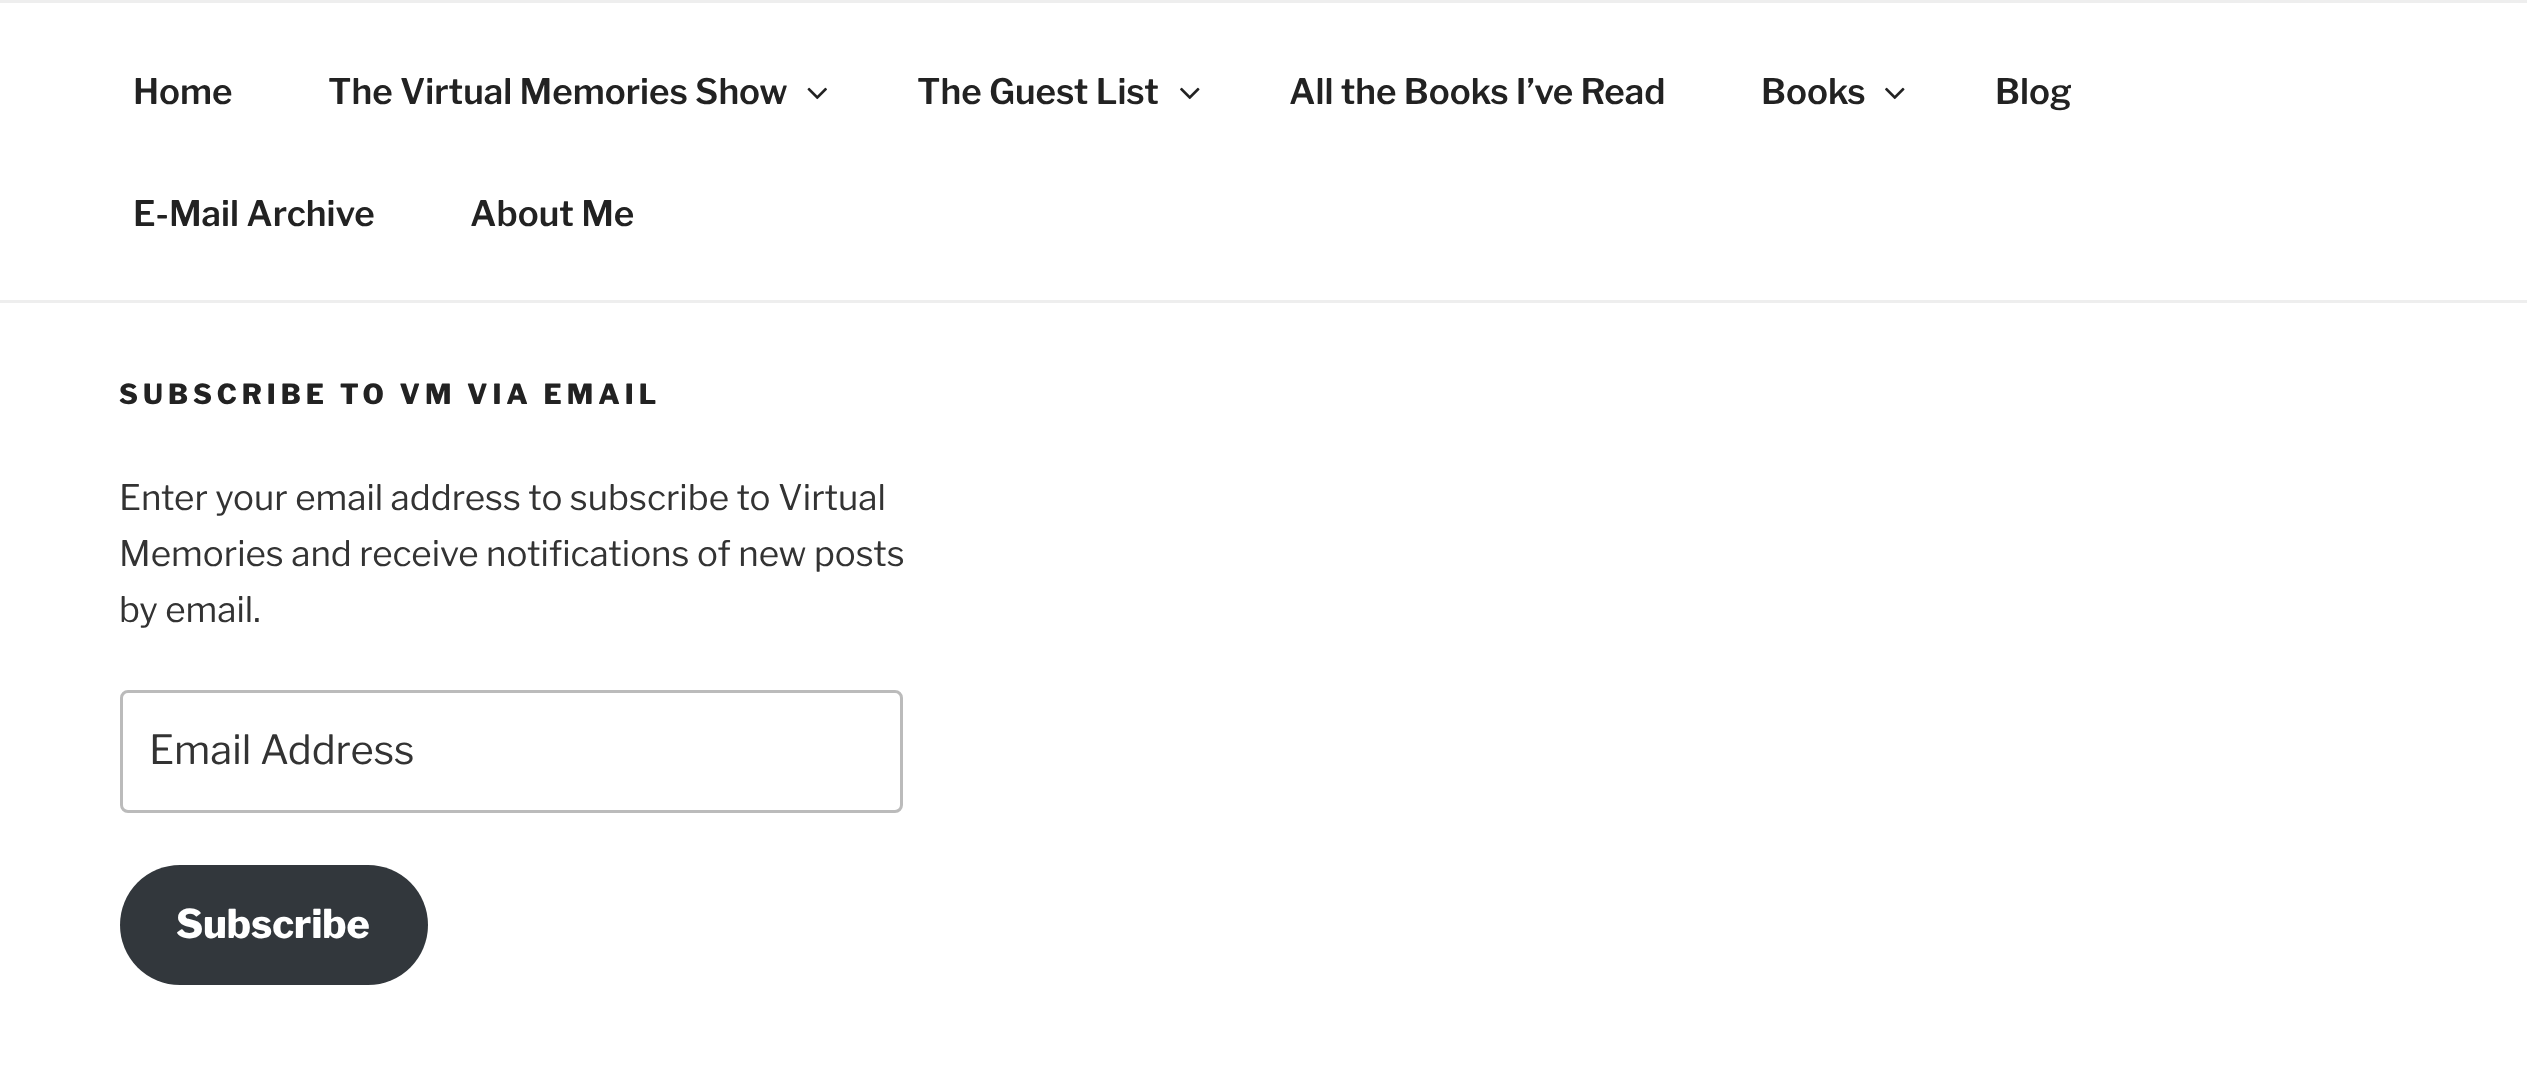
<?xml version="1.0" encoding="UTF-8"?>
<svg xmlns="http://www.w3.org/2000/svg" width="2527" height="1089">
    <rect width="100%" height="100%" fill="#FFFFFF"/>
    <rect x="0" y="0" width="2527" height="3" fill="#EEEEEE"/>
    <rect x="0" y="300" width="2527" height="3" fill="#EEEEEE"/>
    <text x="133" y="104" font-family="'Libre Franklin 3'" font-size="35" font-weight="100" fill="#222222">Home</text>
    <text x="328" y="104" font-family="'Libre Franklin 3'" font-size="35" font-weight="100" fill="#222222">The Virtual Memories Show</text>
    <image x="807" y="87" width="20" height="13" href="img_01.png"/>
    <text x="917" y="104" font-family="'Libre Franklin 3'" font-size="35" font-weight="100" fill="#222222">The Guest List</text>
    <image x="1180" y="87" width="20" height="13" href="img_02.png"/>
    <text x="1289" y="104" font-family="'Libre Franklin 3'" font-size="35" font-weight="100" fill="#222222">All the Books I’ve Read</text>
    <text x="1761" y="104" font-family="'Libre Franklin 3'" font-size="35" font-weight="100" fill="#222222">Books</text>
    <image x="1885" y="87" width="20" height="13" href="img_02.png"/>
    <text x="1995" y="104" font-family="'Libre Franklin 3'" font-size="35" font-weight="100" fill="#222222">Blog</text>
    <text x="133" y="226" font-family="'Libre Franklin 3'" font-size="35" font-weight="100" fill="#222222">E-Mail Archive</text>
    <text x="470" y="226" font-family="'Libre Franklin 3'" font-size="35" font-weight="100" fill="#222222">About Me</text>
    <text x="119" y="404" font-family="Libre Franklin" font-size="27.5" font-weight="100" letter-spacing="5" fill="#222222">SUBSCRIBE TO VM VIA EMAIL</text>
    <text font-family="'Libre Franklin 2'" font-size="35" font-weight="100" fill="#333333">
        <tspan x="119" y="510">Enter your email address to subscribe to Virtual</tspan>
        <tspan x="119" y="566">Memories and receive notifications of new posts</tspan>
        <tspan x="119" y="622">by email.</tspan>
    </text>
    <rect x="121.5" y="691.5" width="780" height="120" rx="6.5" fill="none" stroke="#BBBBBB" stroke-width="3"/>
    <text x="149" y="764" font-family="'Libre Franklin 2'" font-size="40" font-weight="100" fill="#333333">Email Address</text>
    <rect x="120" y="865" width="308" height="120" rx="60" fill="#32373C"/>
    <text x="176" y="938" font-family="Libre Franklin" font-size="39.5" font-weight="100" fill="#FFFFFF">Subscribe</text>
</svg>
